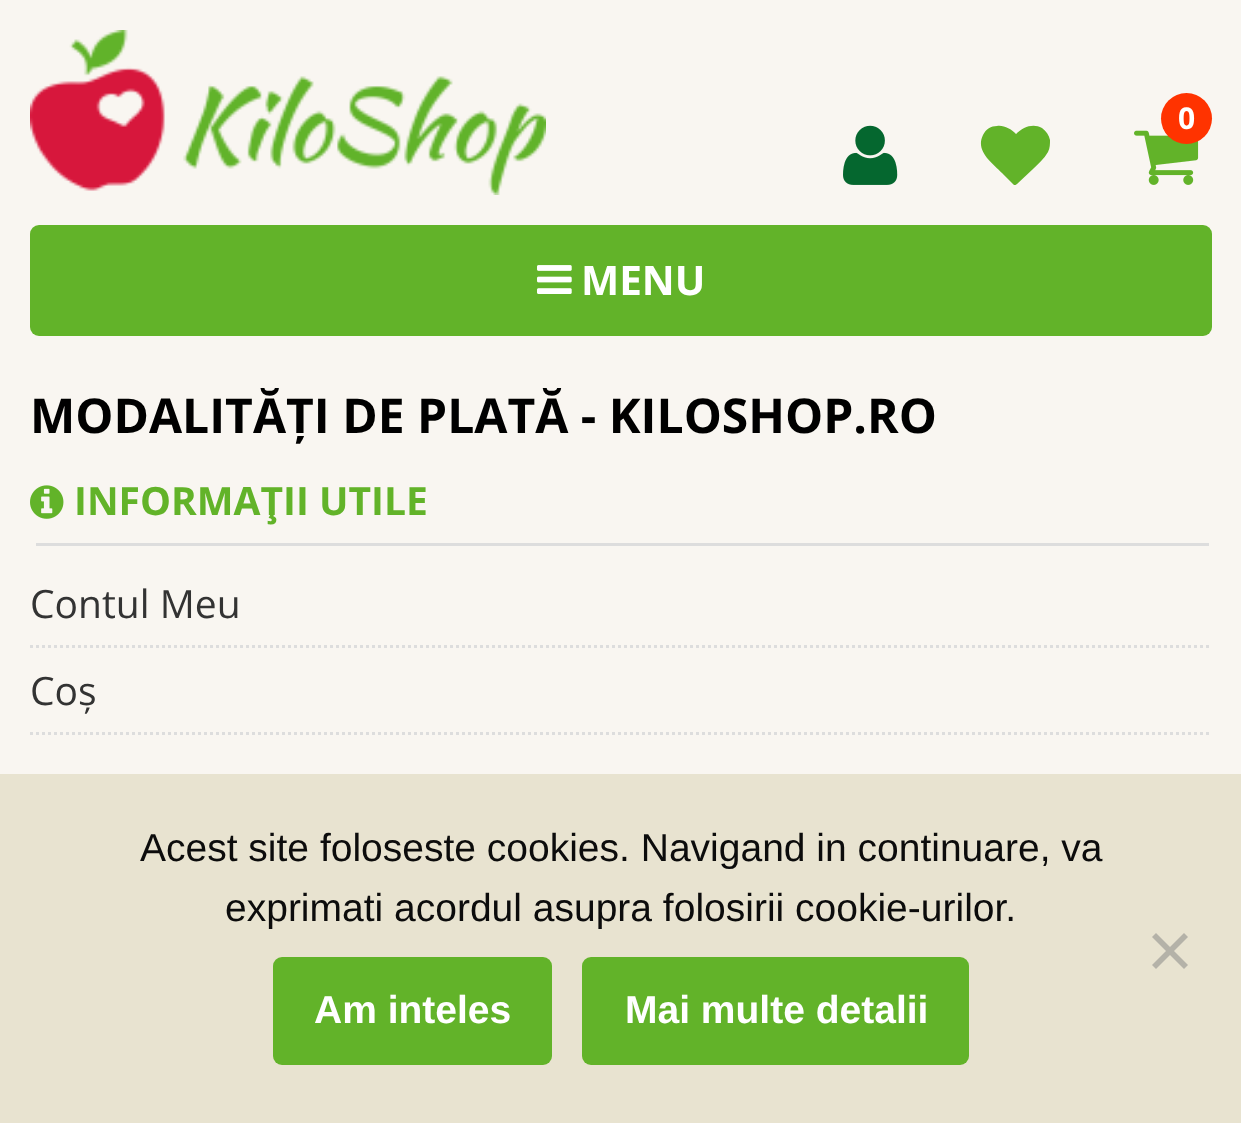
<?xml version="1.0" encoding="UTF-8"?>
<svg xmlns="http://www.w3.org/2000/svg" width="1241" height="1123">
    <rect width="100%" height="100%" fill="#F9F6F1"/>
    <image x="30" y="30" width="516" height="165" href="img_01.png"/>
    <image x="1134" y="130" width="65" height="55" href="img_02.png"/>
    <circle cx="1186.5" cy="118.5" r="25.5" fill="#FF3300"/>
    <text x="1178" y="129" font-family="Open Sans" font-size="30" font-weight="700" fill="#FFFFFF">0</text>
    <image x="843" y="125" width="55" height="60" href="img_03.png"/>
    <path d="M 1017 184 C 1016 185 1015 185 1014 185 L 1002 173 C 992 163 975 151 983 135 C 986 129 991 126 997 126 C 1004 125 1011 129 1016 134 C 1023 127 1033 123 1042 128 C 1046 131 1049 135 1050 140 C 1050 144 1050 148 1048 152 C 1044 159 1038 164 1033 169 Z" fill="#62B329"/>
    <rect x="30" y="225" width="1182" height="111" rx="9" fill="#62B329"/>
    <image x="537" y="265" width="35" height="29" href="img_04.png"/>
    <text x="581" y="295" font-family="Open Sans" font-size="40.5" font-weight="700" fill="#FFFFFF">MENU</text>
    <text x="30" y="433" font-family="Open Sans" font-size="48" font-weight="700" fill="#000000">MODALITĂȚI DE PLATĂ - KILOSHOP.RO</text>
    <rect x="36" y="543" width="1173" height="3" fill="#DDDDDD"/>
    <image x="30" y="485" width="34" height="34" href="img_05.png"/>
    <text x="74" y="515" font-family="Open Sans" font-size="39" font-weight="700" fill="#62B329">INFORMAŢII UTILE</text>
    <path d="M 30 646.5 H 1212" fill="none" stroke="#DDDDDD" stroke-width="3" stroke-dasharray="3 3"/>
    <text x="30" y="618" font-family="Open Sans" font-size="39" fill="#333333">Contul Meu</text>
    <path d="M 30 733.5 H 1212" fill="none" stroke="#DDDDDD" stroke-width="3" stroke-dasharray="3 3"/>
    <text x="30" y="705" font-family="Open Sans" font-size="39" fill="#333333">Coș</text>
    <rect x="0" y="774" width="1241" height="349" fill="#E8E3D0"/>
    <text x="140" y="861" font-family="Liberation Sans" font-size="39" fill="#0C0C0C">Acest site foloseste cookies. Navigand in continuare, va</text>
    <text x="225" y="921" font-family="Liberation Sans" font-size="39" fill="#0C0C0C">exprimati acordul asupra folosirii cookie-urilor.</text>
    <path d="M 1184 933 L 1188 937 L 1156 969 L 1152 965 Z" fill="#B4B2A8"/>
    <path d="M 1152 937 L 1156 933 L 1188 965 L 1184 969 Z" fill="#B4B2A8"/>
    <rect x="273" y="957" width="279" height="108" rx="9" fill="#62B329"/>
    <text x="314" y="1023" font-family="Liberation Sans" font-size="39" font-weight="700" fill="#FFFFFF">Am inteles</text>
    <rect x="582" y="957" width="387" height="108" rx="9" fill="#62B329"/>
    <text x="625" y="1023" font-family="Liberation Sans" font-size="39" font-weight="700" fill="#FFFFFF">Mai multe detalii</text>
</svg>
